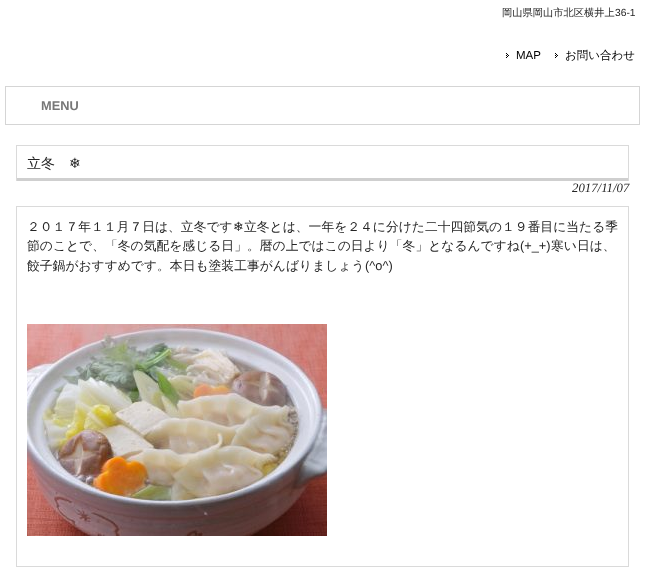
<?xml version="1.0" encoding="UTF-8"?>
<svg xmlns="http://www.w3.org/2000/svg" width="645" height="567">
    <rect width="100%" height="100%" fill="#FFFFFF"/>
    <text x="502" y="16" font-family="WenQuanYi Zen Hei" font-size="10.25" font-weight="500" fill="#252525">岡山県岡山市北区横井上</text>
    <text x="615" y="16" font-family="Liberation Sans" font-size="10.25" fill="#252525">36-1</text>
    <image x="506" y="53" width="3" height="5" href="img_01.png"/>
    <text x="516" y="59" font-family="Liberation Sans" font-size="11.5" fill="#000000">MAP</text>
    <image x="555" y="53" width="3" height="5" href="img_01.png"/>
    <text x="565" y="59" font-family="WenQuanYi Zen Hei" font-size="11.5" font-weight="500" fill="#000000">お問い合わせ</text>
    <rect x="5.5" y="86.5" width="634" height="38" fill="none" stroke="#D5D5D5"/>
    <text x="41" y="110" font-family="Liberation Sans" font-size="12.8" font-weight="700" fill="#777777">MENU</text>
    <rect x="16" y="178" width="613" height="3" fill="#CFCFCF"/>
    <rect x="16" y="145" width="613" height="1" fill="#DADADA"/>
    <rect x="628" y="145" width="1" height="36" fill="#DADADA"/>
    <rect x="16" y="145" width="1" height="36" fill="#DADADA"/>
    <text x="27" y="168" font-family="WenQuanYi Zen Hei" font-size="14" font-weight="500" fill="#252525">立冬</text>
    <text x="69" y="168" font-family="DejaVu Sans" font-size="14" fill="#252525">❄</text>
    <text x="572" y="192" font-family="Liberation Serif" font-size="12.8" font-style="italic" fill="#252525">2017/11/07</text>
    <rect x="16.5" y="206.5" width="612" height="360" fill="none" stroke="#DADADA"/>
    <text x="27" y="231" font-family="WenQuanYi Zen Hei" font-size="12.8" font-weight="500" fill="#252525">２０１７年１１月７日は、立冬です</text>
    <text x="233" y="231" font-family="DejaVu Sans" font-size="12.8" fill="#252525">❄</text>
    <text x="244" y="231" font-family="WenQuanYi Zen Hei" font-size="12.8" font-weight="500" fill="#252525">立冬とは、一年を２４に分けた二十四節気の１９番目に当たる季</text>
    <text x="27" y="250" font-family="WenQuanYi Zen Hei" font-size="12.8" font-weight="500" fill="#252525">節のことで、「冬の気配を感じる日」。暦の上ではこの日より「冬」となるんですね</text>
    <text x="520" y="250" font-family="Liberation Sans" font-size="12.8" fill="#252525">(+_+)</text>
    <text x="551" y="250" font-family="WenQuanYi Zen Hei" font-size="12.8" font-weight="500" fill="#252525">寒い日は、</text>
    <text x="27" y="270" font-family="WenQuanYi Zen Hei" font-size="12.8" font-weight="500" fill="#252525">餃子鍋がおすすめです。本日も塗装工事がんばりましょう</text>
    <text x="365" y="270" font-family="Liberation Sans" font-size="12.8" fill="#252525">(^o^)</text>
    <image x="27" y="324" width="300" height="212" href="img_02.png"/>
</svg>
